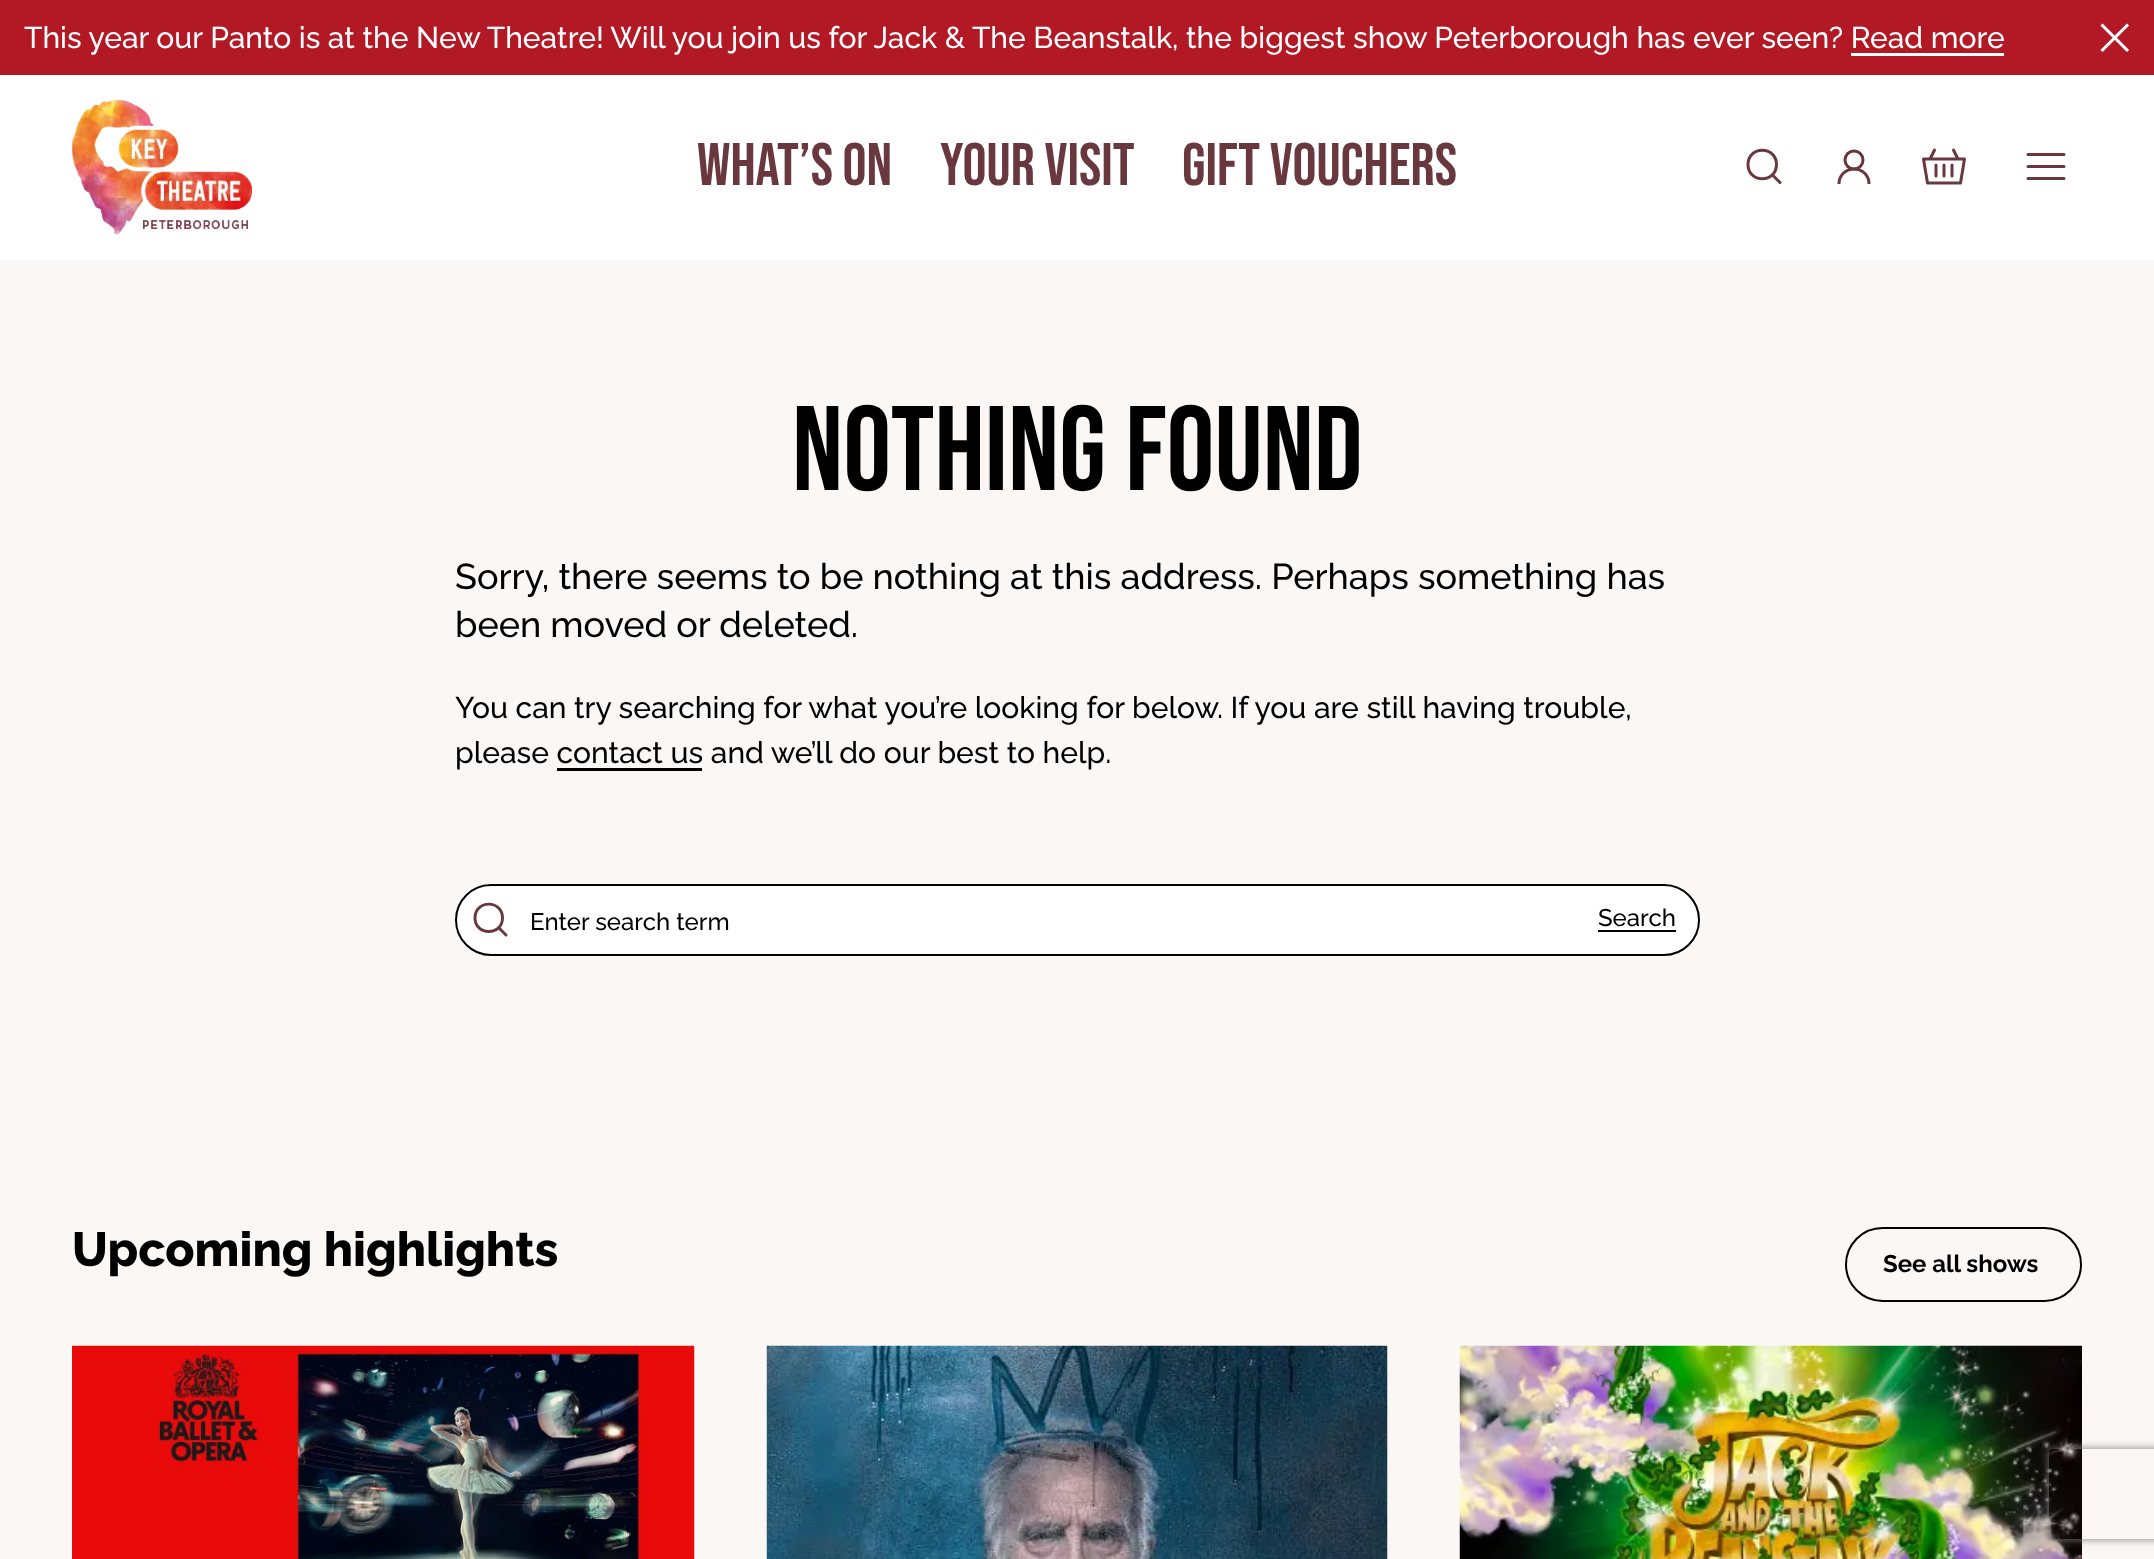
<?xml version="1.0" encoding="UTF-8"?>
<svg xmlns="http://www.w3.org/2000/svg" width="2154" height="1559">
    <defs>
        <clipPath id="clip1"><path d="M 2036 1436 H 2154 V 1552 H 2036 Z M 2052 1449 H 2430 C 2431.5 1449 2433 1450.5 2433 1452 V 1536 C 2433 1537.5 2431.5 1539 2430 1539 H 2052 C 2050.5 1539 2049 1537.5 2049 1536 V 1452 C 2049 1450.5 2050.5 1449 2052 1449 Z" clip-rule="evenodd"/></clipPath>
        <filter id="blur1" x="-50%" y="-200%" width="200%" height="500%"><feGaussianBlur stdDeviation="4"/></filter>
    </defs>
    <rect width="100%" height="100%" fill="#FFFFFF"/>
    <rect x="0" y="0" width="2154" height="75" fill="#B31925"/>
    <text x="24" y="48" font-family="Raleway" font-size="30" font-weight="500" fill="#FFFFFF">This year our Panto is at the New Theatre! Will you join us for Jack &amp; The Beanstalk, the biggest show Peterborough has ever seen? Read more</text>
    <rect x="1851" y="53" width="153" height="3" fill="#FFFFFF"/>
    <path d="M 2101.5 24.5 L 2128 51 M 2128 24.5 L 2101.5 51" fill="none" stroke="#FFFFFF" stroke-width="3.1"/>
    <image x="72" y="99" width="180" height="136" href="img_01.png"/>
    <text x="697" y="185" font-family="Bebas Neue" font-size="60" fill="#69383F">What’s on</text>
    <text x="940" y="185" font-family="Bebas Neue" font-size="60" fill="#69383F">Your visit</text>
    <text x="1182" y="185" font-family="Bebas Neue" font-size="60" fill="#69383F">Gift Vouchers</text>
    <path d="M 1780 182.5 L 1772.5 175 M 1776.5 164.5 C 1776.5 183.5 1748 183.5 1748 164.5 C 1748 145.5 1776.5 145.5 1776.5 164.5 Z" fill="none" stroke="#69383F" stroke-width="3" stroke-linecap="round" stroke-linejoin="round"/>
    <circle cx="1854" cy="160" r="9" fill="none" stroke="#69383F" stroke-width="3"/>
    <path d="M 1869 184 C 1869 175.5 1862.5 169 1854 169 C 1845.5 169 1839 175.5 1839 184" fill="none" stroke="#69383F" stroke-width="3"/>
    <path d="M 1930 159 H 1923.5 L 1927.5 183 H 1960.5 L 1964.5 159 H 1958 M 1930 159 L 1934.5 150 M 1930 159 H 1958 M 1958 159 L 1953.5 150 M 1936 165 V 176 M 1952 165 V 176 M 1944 165 V 176" fill="none" stroke="#69383F" stroke-width="3" stroke-linecap="round" stroke-linejoin="round"/>
    <path d="M 2028 154.5 H 2064 M 2028 166.5 H 2064 M 2028 178.5 H 2064" fill="none" stroke="#69383F" stroke-width="3" stroke-linecap="round" stroke-linejoin="round"/>
    <rect x="0" y="260" width="2154" height="1299" fill="#FAF7F5"/>
    <text x="792" y="490" font-family="Bebas Neue" font-size="120" fill="#000000">NOTHING FOUND</text>
    <text font-family="Raleway" font-size="36" font-weight="500" fill="#000000">
        <tspan x="455" y="589">Sorry, there seems to be nothing at this address. Perhaps something has</tspan>
        <tspan x="455" y="637">been moved or deleted.</tspan>
    </text>
    <text font-family="Raleway" font-size="30" font-weight="500" fill="#000000">
        <tspan x="455" y="718">You can try searching for what you’re looking for below. If you are still having trouble,</tspan>
        <tspan x="455" y="763">please contact us and we’ll do our best to help.</tspan>
    </text>
    <rect x="557" y="768" width="145" height="3" fill="#000000"/>
    <rect x="455" y="884" width="1245" height="72" rx="36" fill="#FFFFFF"/>
    <path d="M 506 935 L 498.5 927.5 M 502.5 918 C 502.5 936 475 936 475 918 C 475 899.5 502.5 899.5 502.5 918 Z" fill="none" stroke="#69383F" stroke-width="2.9" stroke-linecap="round" stroke-linejoin="round"/>
    <rect x="456" y="885" width="1243" height="70" rx="35" fill="none" stroke="#000000" stroke-width="2"/>
    <text x="530" y="930" font-family="Raleway" font-size="24" font-weight="500" fill="#000000">Enter search term</text>
    <text x="1598" y="926" font-family="Raleway" font-size="24" font-weight="500" fill="#000000">Search</text>
    <rect x="1598" y="930" width="78" height="2" fill="#000000"/>
    <text x="72" y="1266" font-family="Raleway" font-size="48" font-weight="800" fill="#000000">Upcoming highlights</text>
    <rect x="1846" y="1228" width="235" height="73" rx="36.5" fill="none" stroke="#000000" stroke-width="2"/>
    <text x="1883" y="1272" font-family="Raleway" font-size="24" font-weight="700" fill="#000000">See all shows</text>
    <image x="72" y="1345" width="623" height="214" href="img_02.png"/>
    <image x="766" y="1345" width="622" height="214" href="img_03.png"/>
    <image x="1459" y="1345" width="623" height="214" href="img_04.png"/>
    <g clip-path="url(#clip1)">
        <rect x="2049" y="1449" width="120" height="90" rx="3" fill="#808080" filter="url(#blur1)"/>
    </g>
</svg>
